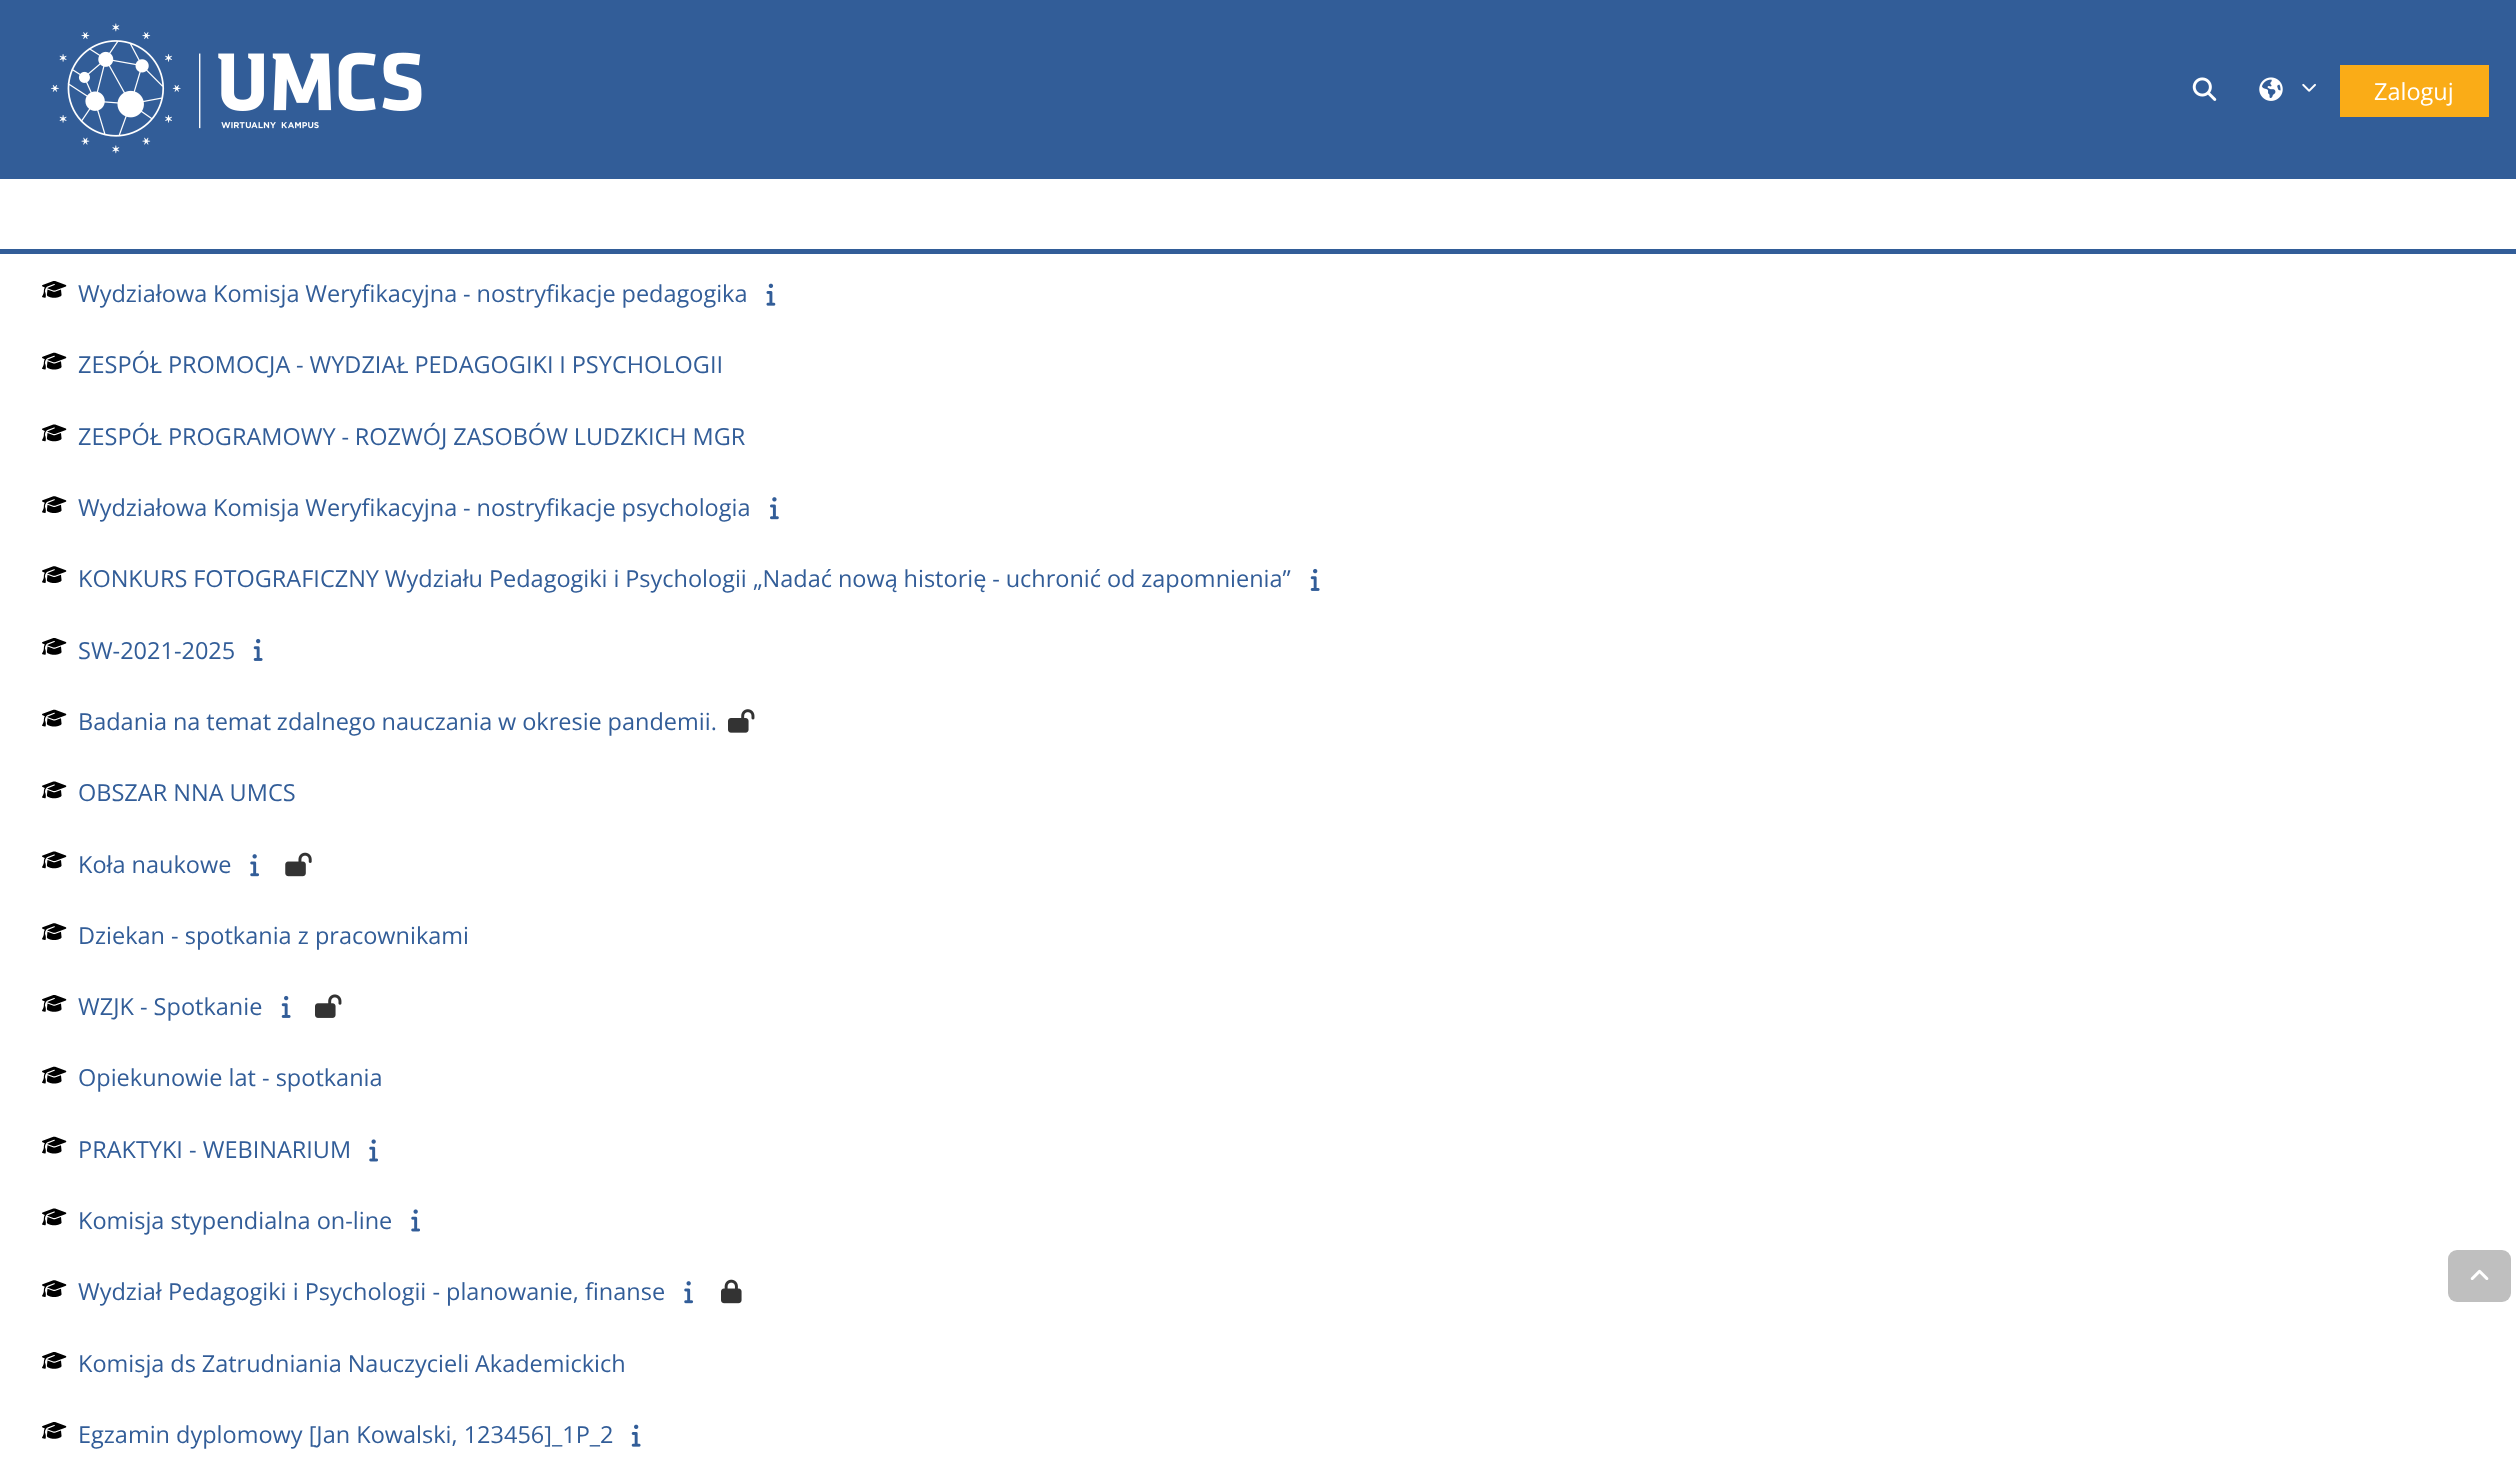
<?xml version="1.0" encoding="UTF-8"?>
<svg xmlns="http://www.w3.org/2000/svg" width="2516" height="1469">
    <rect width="100%" height="100%" fill="#FFFFFF"/>
    <rect x="0" y="0" width="2516" height="179" fill="#325D98"/>
    <image x="51" y="23" width="371" height="131" href="img_01.png"/>
    <image x="2192" y="77" width="25" height="24" href="img_02.png"/>
    <image x="2259" y="77" width="24" height="24" href="img_03.png"/>
    <image x="2302" y="83" width="14" height="9" href="img_04.png"/>
    <rect x="2340" y="65" width="149" height="52" fill="#FAAC17"/>
    <text x="2374" y="100" font-family="Open Sans" font-size="23.5" fill="#FFFFFF">Zaloguj</text>
    <rect x="0" y="249" width="2516" height="5" fill="#325D98"/>
    <image x="42" y="281" width="25" height="17" href="img_05.png"/>
    <text x="78" y="302" word-spacing="-0.25" font-family="Open Sans" font-size="23.5" fill="#325D98">Wydziałowa Komisja Weryfikacyjna - nostryfikacje pedagogika</text>
    <image x="766" y="283" width="10" height="23" href="img_06.png"/>
    <image x="42" y="352" width="25" height="18" href="img_07.png"/>
    <text x="78" y="373" word-spacing="-0.25" font-family="Open Sans" font-size="23.5" fill="#325D98">ZESPÓŁ PROMOCJA - WYDZIAŁ PEDAGOGIKI I PSYCHOLOGII</text>
    <image x="42" y="424" width="25" height="18" href="img_08.png"/>
    <text x="78" y="445" word-spacing="-0.25" font-family="Open Sans" font-size="23.5" fill="#325D98">ZESPÓŁ PROGRAMOWY - ROZWÓJ ZASOBÓW LUDZKICH MGR</text>
    <image x="42" y="496" width="25" height="17" href="img_09.png"/>
    <text x="78" y="516" word-spacing="-0.25" font-family="Open Sans" font-size="23.5" fill="#325D98">Wydziałowa Komisja Weryfikacyjna - nostryfikacje psychologia</text>
    <image x="770" y="497" width="9" height="23" href="img_10.png"/>
    <image x="42" y="566" width="25" height="17" href="img_09.png"/>
    <text x="78" y="587" word-spacing="-0.25" font-family="Open Sans" font-size="23.5" fill="#325D98">KONKURS FOTOGRAFICZNY Wydziału Pedagogiki i Psychologii</text>
    <text x="753" y="587" word-spacing="-0.25" font-family="Open Sans" font-size="23.5" fill="#325D98">„Nadać nową historię - uchronić od zapomnienia”</text>
    <image x="1310" y="568" width="10" height="23" href="img_11.png"/>
    <image x="42" y="638" width="25" height="17" href="img_05.png"/>
    <text x="78" y="659" font-family="Open Sans" font-size="23.5" fill="#325D98">SW-2021-2025</text>
    <image x="253" y="638" width="10" height="23" href="img_11.png"/>
    <image x="42" y="709" width="25" height="18" href="img_12.png"/>
    <text x="78" y="730" word-spacing="-0.25" font-family="Open Sans" font-size="23.5" fill="#325D98">Badania na temat zdalnego nauczania w okresie pandemii.</text>
    <image x="728" y="709" width="27" height="24" href="img_13.png"/>
    <image x="42" y="781" width="25" height="18" href="img_08.png"/>
    <text x="78" y="801" font-family="Open Sans" font-size="23.5" fill="#325D98">OBSZAR NNA UMCS</text>
    <image x="42" y="851" width="25" height="18" href="img_08.png"/>
    <text x="78" y="873" font-family="Open Sans" font-size="23.5" fill="#325D98">Koła naukowe</text>
    <image x="250" y="854" width="10" height="23" href="img_14.png"/>
    <image x="285" y="852" width="27" height="25" href="img_15.png"/>
    <image x="42" y="923" width="25" height="17" href="img_09.png"/>
    <text x="78" y="944" font-family="Open Sans" font-size="23.5" fill="#325D98">Dziekan - spotkania z pracownikami</text>
    <image x="42" y="995" width="25" height="17" href="img_05.png"/>
    <text x="78" y="1015" font-family="Open Sans" font-size="23.5" fill="#325D98">WZJK - Spotkanie</text>
    <image x="281" y="995" width="10" height="23" href="img_11.png"/>
    <image x="315" y="994" width="27" height="24" href="img_16.png"/>
    <image x="42" y="1066" width="25" height="18" href="img_07.png"/>
    <text x="78" y="1086" font-family="Open Sans" font-size="23.5" fill="#325D98">Opiekunowie lat - spotkania</text>
    <image x="42" y="1136" width="25" height="18" href="img_07.png"/>
    <text x="78" y="1158" font-family="Open Sans" font-size="23.5" fill="#325D98">PRAKTYKI - WEBINARIUM</text>
    <image x="369" y="1139" width="9" height="23" href="img_17.png"/>
    <image x="42" y="1208" width="25" height="18" href="img_08.png"/>
    <text x="78" y="1229" font-family="Open Sans" font-size="23.5" fill="#325D98">Komisja stypendialna on-line</text>
    <image x="411" y="1209" width="9" height="23" href="img_17.png"/>
    <image x="42" y="1280" width="25" height="17" href="img_09.png"/>
    <text x="78" y="1300" font-family="Open Sans" font-size="23.5" fill="#325D98">Wydział Pedagogiki i Psychologii - planowanie, finanse</text>
    <image x="684" y="1281" width="10" height="23" href="img_14.png"/>
    <image x="721" y="1279" width="21" height="25" href="img_18.png"/>
    <image x="42" y="1352" width="25" height="17" href="img_05.png"/>
    <text x="78" y="1372" word-spacing="-0.25" font-family="Open Sans" font-size="23.5" fill="#325D98">Komisja ds Zatrudniania Nauczycieli Akademickich</text>
    <image x="42" y="1422" width="25" height="17" href="img_05.png"/>
    <text x="78" y="1443" font-family="Open Sans" font-size="23.5" fill="#325D98">Egzamin dyplomowy [Jan Kowalski, 123456]_1P_2</text>
    <image x="631" y="1424" width="10" height="23" href="img_19.png"/>
    <rect x="2448" y="1250" width="63" height="52" rx="9" fill="#BFBFBF"/>
    <image x="2470" y="1269" width="19" height="11" href="img_20.png"/>
</svg>
